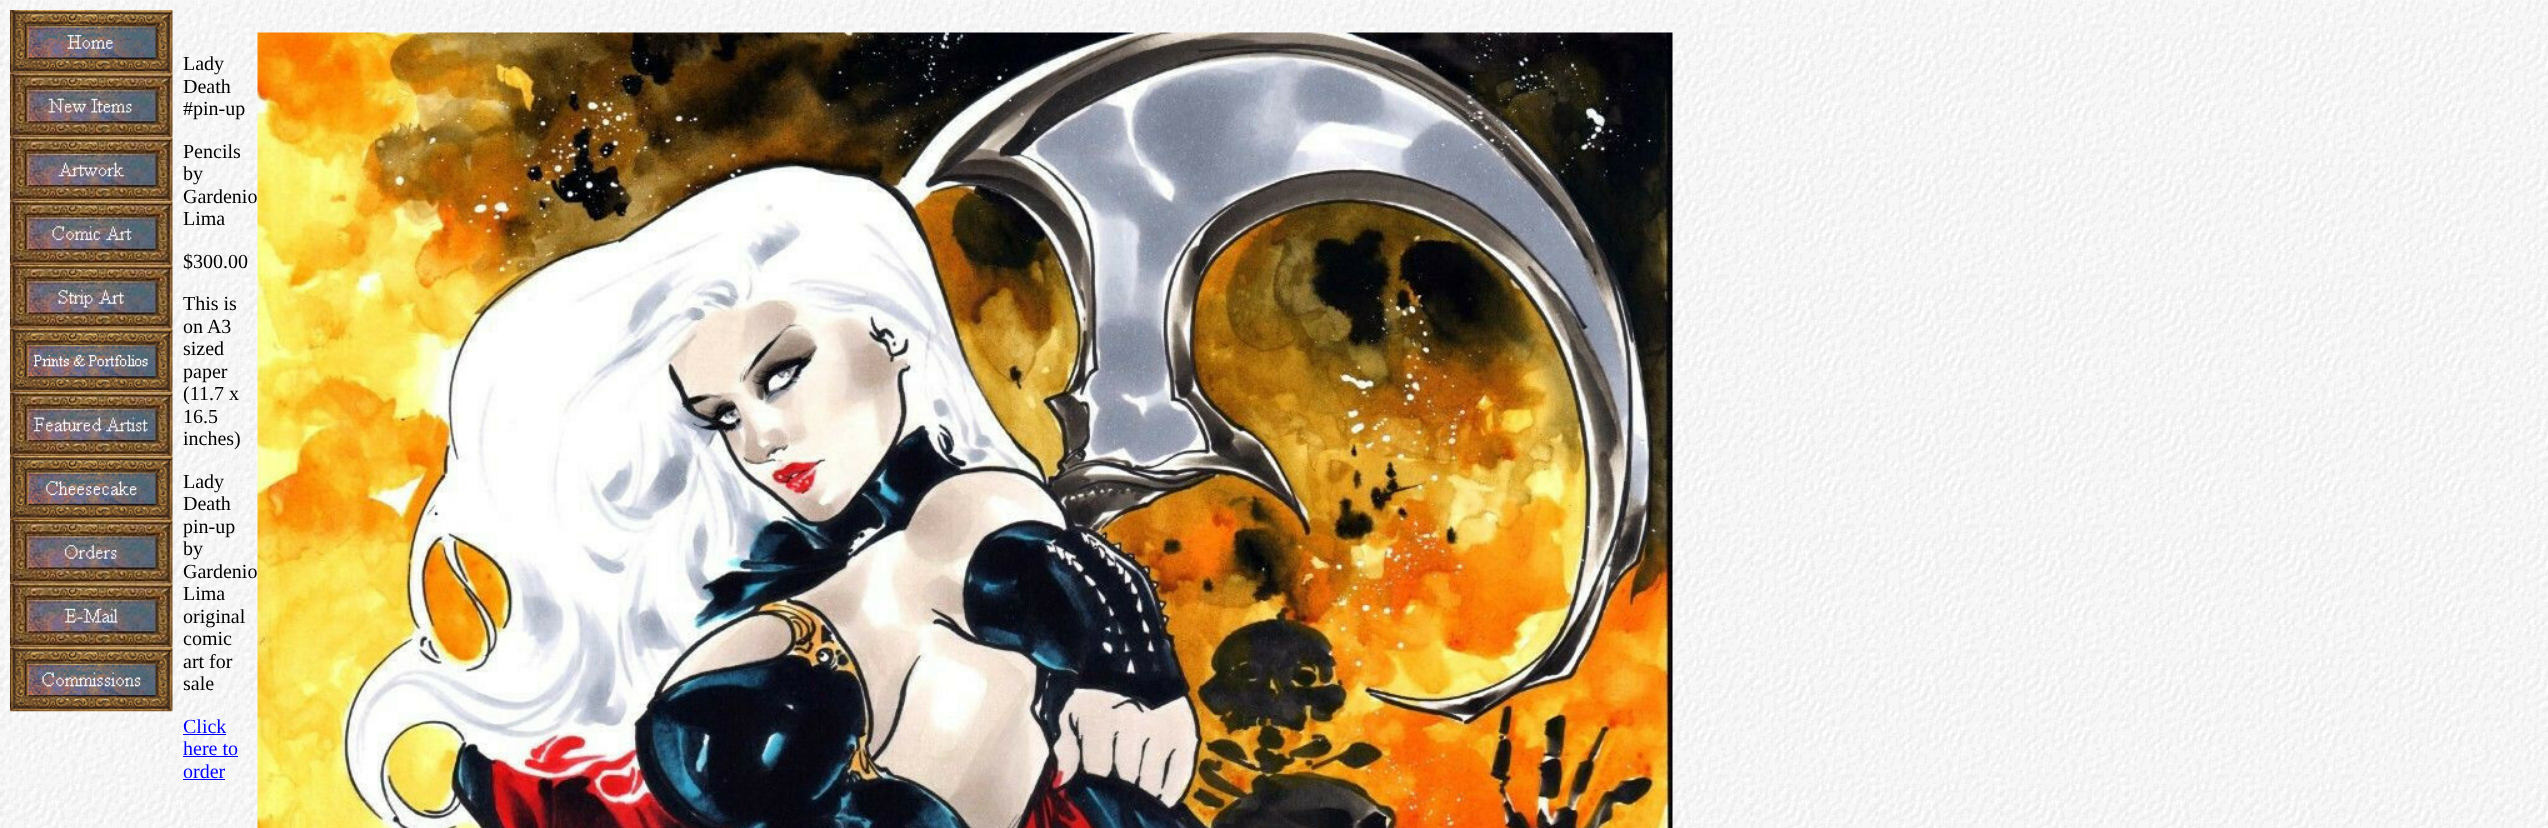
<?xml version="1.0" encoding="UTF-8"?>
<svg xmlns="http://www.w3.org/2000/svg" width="2548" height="828">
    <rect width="100%" height="100%" fill="#FFFFFF"/>
    <image x="0" y="0" width="2548" height="828" href="img_01.png"/>
    <image x="10" y="10" width="163" height="64" href="img_02.png"/>
    <image x="10" y="73" width="163" height="65" href="img_03.png"/>
    <image x="10" y="137" width="163" height="65" href="img_04.png"/>
    <image x="10" y="201" width="163" height="64" href="img_05.png"/>
    <image x="10" y="265" width="163" height="64" href="img_06.png"/>
    <image x="10" y="328" width="163" height="65" href="img_07.png"/>
    <image x="10" y="392" width="163" height="65" href="img_08.png"/>
    <image x="10" y="456" width="163" height="64" href="img_09.png"/>
    <image x="10" y="520" width="163" height="64" href="img_10.png"/>
    <image x="10" y="583" width="163" height="65" href="img_11.png"/>
    <image x="10" y="647" width="163" height="65" href="img_12.png"/>
    <text font-family="Liberation Serif" font-size="20" fill="#000000">
        <tspan x="183" y="70">Lady</tspan>
        <tspan x="183" y="93">Death</tspan>
        <tspan x="183" y="115">#pin-up</tspan>
    </text>
    <text font-family="Liberation Serif" font-size="20" fill="#000000">
        <tspan x="183" y="158">Pencils</tspan>
        <tspan x="183" y="180">by</tspan>
        <tspan x="183" y="203">Gardenio</tspan>
        <tspan x="183" y="225">Lima</tspan>
    </text>
    <text x="183" y="268" font-family="Liberation Serif" font-size="20" fill="#000000">$300.00</text>
    <text font-family="Liberation Serif" font-size="20" fill="#000000">
        <tspan x="183" y="310">This is</tspan>
        <tspan x="183" y="333">on A3</tspan>
        <tspan x="183" y="355">sized</tspan>
        <tspan x="183" y="378">paper</tspan>
        <tspan x="183" y="400">(11.7 x</tspan>
        <tspan x="183" y="423">16.5</tspan>
        <tspan x="183" y="445">inches)</tspan>
    </text>
    <text font-family="Liberation Serif" font-size="20" fill="#000000">
        <tspan x="183" y="488">Lady</tspan>
        <tspan x="183" y="510">Death</tspan>
        <tspan x="183" y="533">pin-up</tspan>
        <tspan x="183" y="555">by</tspan>
        <tspan x="183" y="578">Gardenio</tspan>
        <tspan x="183" y="600">Lima</tspan>
        <tspan x="183" y="623">original</tspan>
        <tspan x="183" y="645">comic</tspan>
        <tspan x="183" y="668">art for</tspan>
        <tspan x="183" y="690">sale</tspan>
    </text>
    <text x="183" y="733" font-family="Liberation Serif" font-size="20" fill="#0000FF">Click</text>
    <rect x="183" y="734" width="43" height="1" fill="#0000FF"/>
    <text x="183" y="755" font-family="Liberation Serif" font-size="20" fill="#0000FF">here to</text>
    <rect x="183" y="756" width="55" height="1" fill="#0000FF"/>
    <text x="183" y="778" font-family="Liberation Serif" font-size="20" fill="#0000FF">order</text>
    <rect x="183" y="779" width="42" height="1" fill="#0000FF"/>
    <image x="257" y="32" width="1416" height="796" href="img_13.png"/>
</svg>
